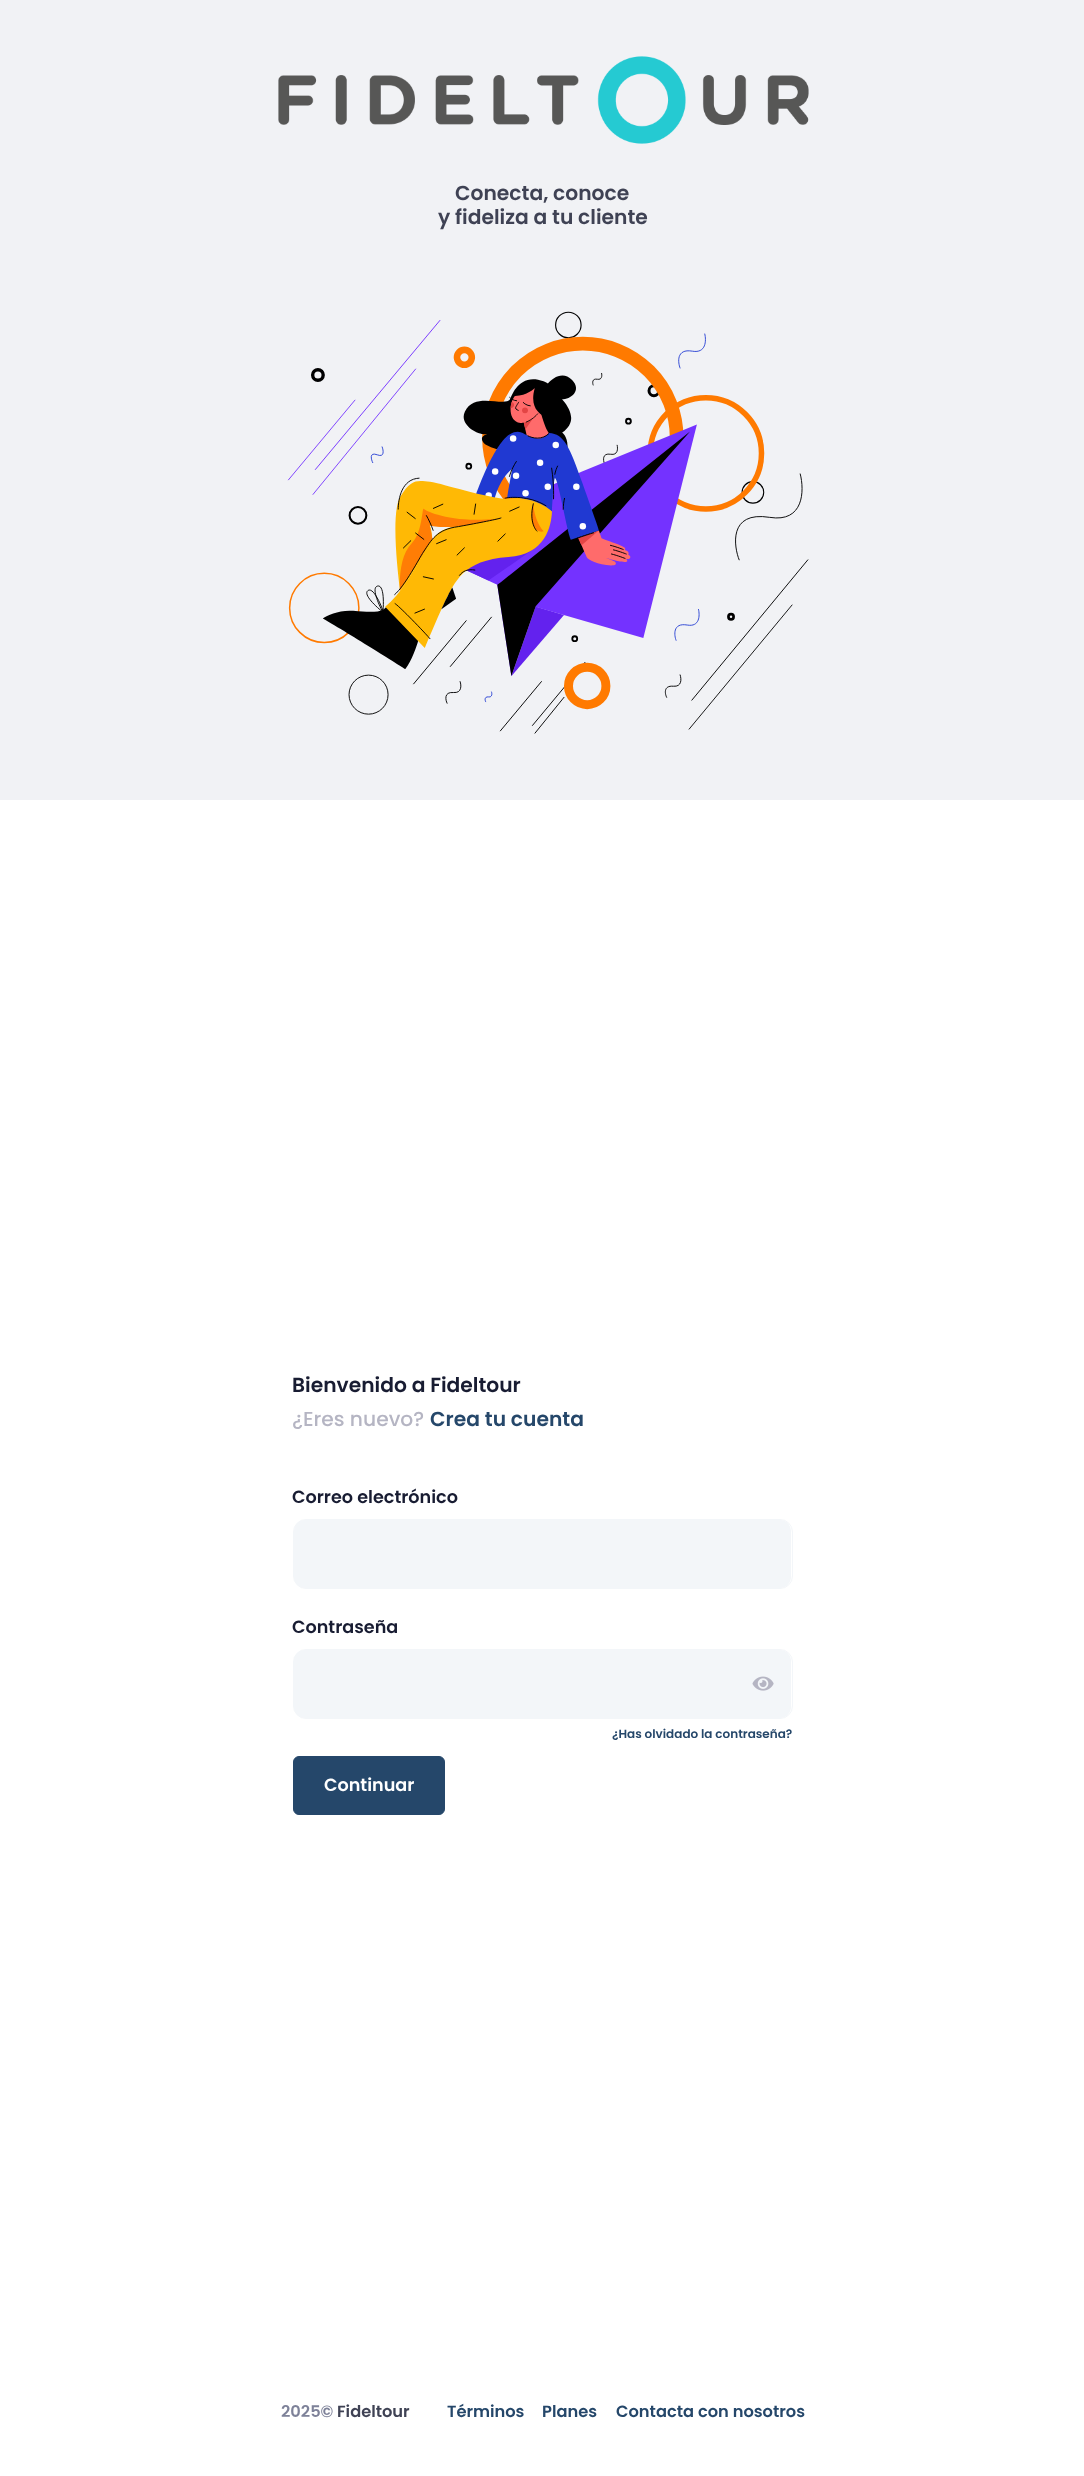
<?xml version="1.0" encoding="UTF-8"?>
<svg xmlns="http://www.w3.org/2000/svg" width="1084" height="2476">
    <rect width="100%" height="100%" fill="#FFFFFF"/>
    <rect x="0" y="0" width="1084" height="800" fill="#F1F2F5"/>
    <image x="278" y="56" width="531" height="88" href="img_01.png"/>
    <text x="455" y="200" font-family="Poppins" font-size="20.25" font-weight="600" fill="#3F4254">Conecta, conoce</text>
    <text x="438" y="224" font-family="Poppins" font-size="20.25" font-weight="600" fill="#3F4254">y fideliza a tu cliente</text>
    <image x="287" y="311" width="522" height="423" href="img_02.png"/>
    <text x="292" y="1392" font-family="Poppins" font-size="20.25" font-weight="600" fill="#181C32">Bienvenido a Fideltour</text>
    <text x="292" y="1426" font-family="Poppins" font-size="20.25" font-weight="500" fill="#B5B5C3">¿Eres nuevo?</text>
    <text x="430" y="1426" font-family="Poppins" font-size="20.25" font-weight="600" fill="#25476A">Crea tu cuenta</text>
    <text x="292" y="1503" font-family="Poppins" font-size="17.6" font-weight="600" fill="#181C32">Correo electrónico</text>
    <rect x="294" y="1520" width="497" height="68" rx="11" fill="#F3F6F9"/>
    <rect x="293.5" y="1519.5" width="499" height="69" rx="12.5" fill="none" stroke="#F3F6F9"/>
    <text x="292" y="1633" font-family="Poppins" font-size="17.6" font-weight="600" fill="#181C32">Contraseña</text>
    <rect x="294" y="1650" width="497" height="68" rx="11" fill="#F3F6F9"/>
    <rect x="293.5" y="1649.5" width="499" height="69" rx="12.5" fill="none" stroke="#F3F6F9"/>
    <image x="752" y="1676" width="22" height="15" href="img_03.png"/>
    <text x="612" y="1738" font-family="Poppins" font-size="12" font-weight="600" fill="#25476A">¿Has olvidado la contraseña?</text>
    <rect x="293.5" y="1756.5" width="151" height="58" rx="5.5" fill="#25476A" stroke="#25476A"/>
    <text x="324" y="1791" font-family="Poppins" font-size="17.6" font-weight="600" fill="#FFFFFF">Continuar</text>
    <text x="281" y="2417" font-family="Poppins" font-size="16.25" font-weight="600" fill="#7E8299">2025©</text>
    <text x="337" y="2417" font-family="Poppins" font-size="16.25" font-weight="600" fill="#3F4254">Fideltour</text>
    <text x="447" y="2417" font-family="Poppins" font-size="16.25" font-weight="600" fill="#25476A">Términos</text>
    <text x="542" y="2417" font-family="Poppins" font-size="16.25" font-weight="600" fill="#25476A">Planes</text>
    <text x="616" y="2417" font-family="Poppins" font-size="16.25" font-weight="600" fill="#25476A">Contacta con nosotros</text>
</svg>
